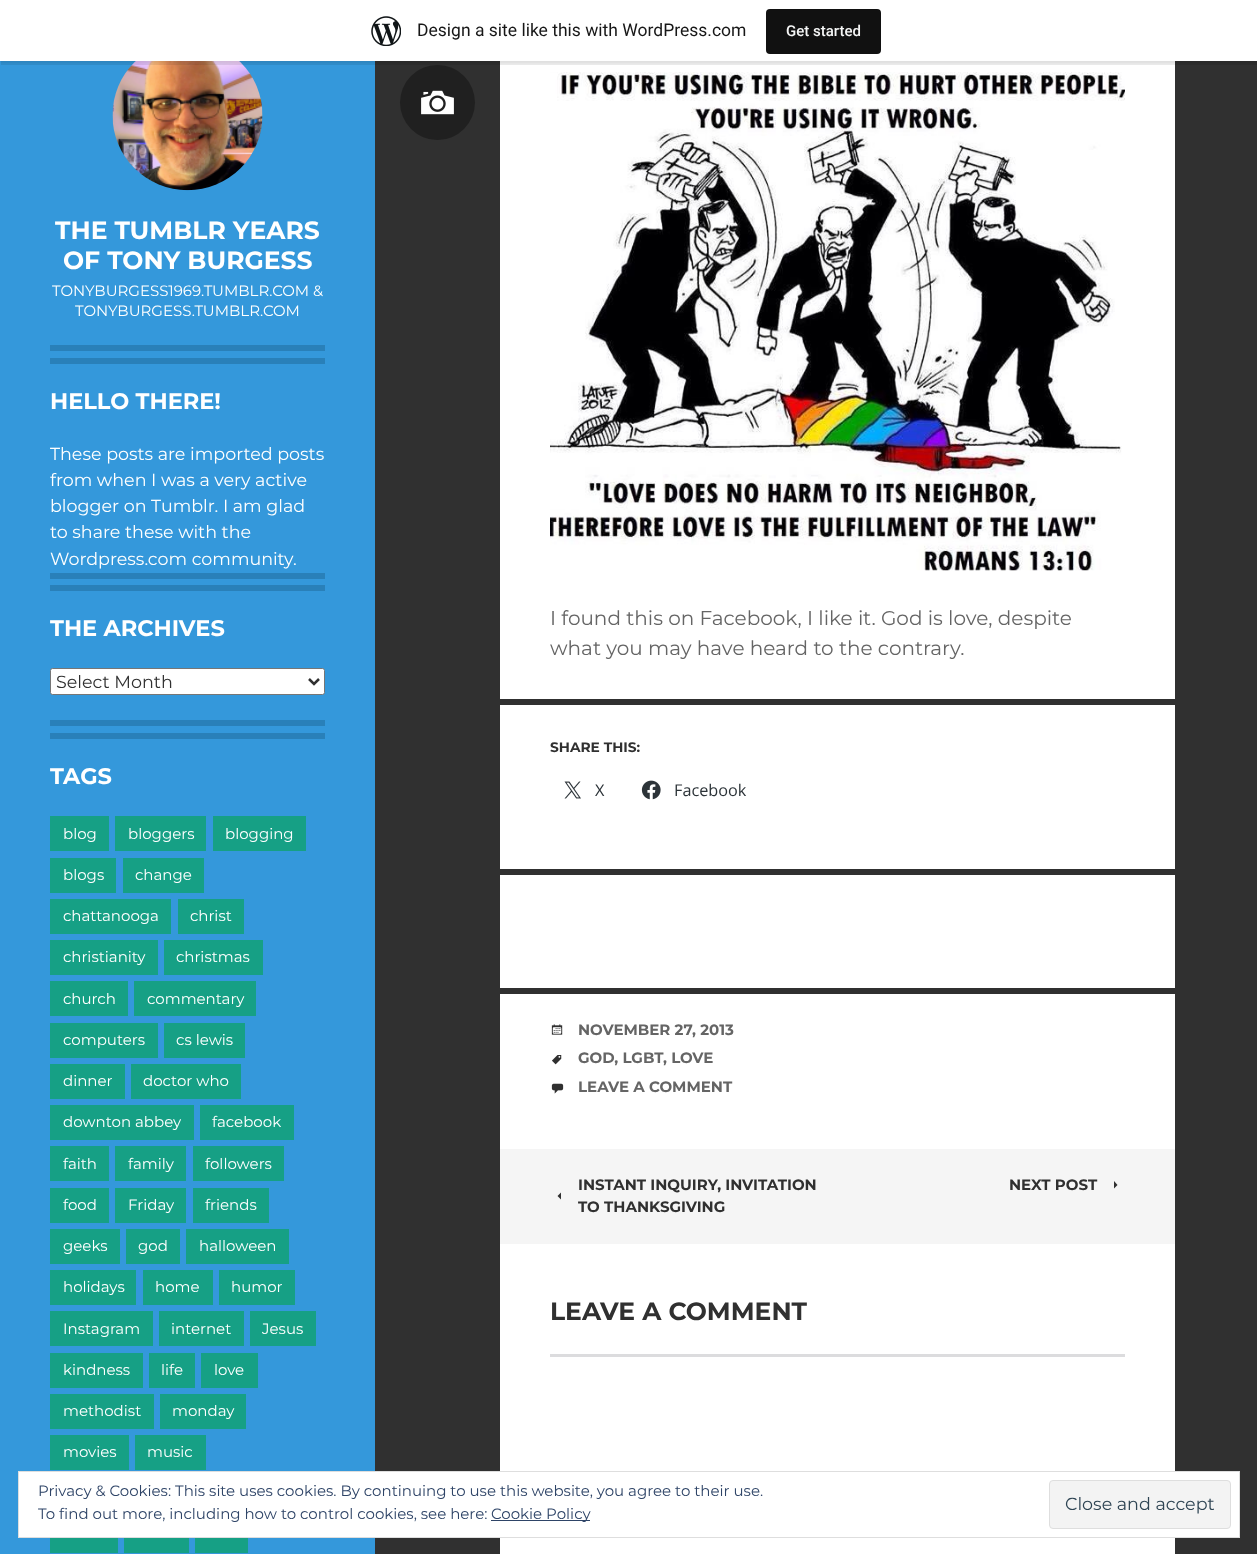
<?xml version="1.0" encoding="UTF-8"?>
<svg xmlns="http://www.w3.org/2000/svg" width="1257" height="1554">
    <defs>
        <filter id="blur1" x="-50%" y="-200%" width="200%" height="500%"><feGaussianBlur stdDeviation="1"/></filter>
    </defs>
    <rect width="100%" height="100%" fill="#303030"/>
    <rect x="0" y="61" width="375" height="1493" fill="#3498DB"/>
    <image x="112" y="61" width="151" height="130" href="img_02.png"/>
    <rect x="500" y="61" width="675" height="1493" fill="#FFFFFF"/>
    <circle cx="437.5" cy="102.5" r="37.5" fill="#202020"/>
    <rect x="0" y="1" width="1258" height="62" fill="#000000" fill-opacity="0.05" filter="url(#blur1)"/>
    <path d="M 1 61 V 65 H 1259 V 4 H 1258 V 61 Z" fill="#000000" fill-opacity="0.08"/>
    <rect x="0" y="0" width="1257" height="61" fill="#FFFFFF"/>
    <image x="371" y="16" width="30" height="30" href="img_01.png"/>
    <text x="417" y="36" font-family="Roboto" font-size="17.5" fill="#171717">Design a site like this with WordPress.com</text>
    <rect x="766" y="9" width="115" height="45" rx="4" fill="#111111"/>
    <text x="786" y="36" font-family="Roboto" font-size="15" font-weight="500" fill="#F6F7F7">Get started</text>
    <rect x="50" y="345" width="275" height="6" fill="#2980B9"/>
    <rect x="50" y="358" width="275" height="6" fill="#2980B9"/>
    <text x="55" y="239" font-family="Montserrat" font-size="25" font-weight="700" fill="#FFFFFF">THE TUMBLR YEARS</text>
    <text x="63" y="269" font-family="Montserrat" font-size="25" font-weight="700" fill="#FFFFFF">OF TONY BURGESS</text>
    <text x="52" y="296" font-family="Montserrat" font-size="15" fill="#FFFFFF">TONYBURGESS1969.TUMBLR.COM &amp;</text>
    <text x="75" y="316" font-family="Montserrat" font-size="15" fill="#FFFFFF">TONYBURGESS.TUMBLR.COM</text>
    <rect x="50" y="573" width="275" height="6" fill="#2980B9"/>
    <rect x="50" y="585" width="275" height="6" fill="#2980B9"/>
    <text x="50" y="409" font-family="Montserrat" font-size="22.5" font-weight="700" fill="#FFFFFF">HELLO THERE!</text>
    <text font-family="Montserrat" font-size="17.5" fill="#FFFFFF">
        <tspan x="50" y="460">These posts are imported posts</tspan>
        <tspan x="50" y="486">from when I was a very active</tspan>
        <tspan x="50" y="512">blogger on Tumblr. I am glad</tspan>
        <tspan x="50" y="538">to share these with the</tspan>
        <tspan x="50" y="565">Wordpress.com community.</tspan>
    </text>
    <rect x="50" y="720" width="275" height="6" fill="#2980B9"/>
    <rect x="50" y="733" width="275" height="6" fill="#2980B9"/>
    <text x="50" y="636" font-family="Montserrat" font-size="22.5" font-weight="700" fill="#FFFFFF">THE ARCHIVES</text>
    <rect x="50.5" y="668.5" width="274" height="26" rx="2" fill="#FFFFFF" stroke="#767676"/>
    <path d="M 309 679 L 314 684 L 319 679" fill="none" stroke="#303030" stroke-width="2.5"/>
    <text x="56" y="688" font-family="Montserrat" font-size="17.5" fill="#303030">Select Month</text>
    <text x="50" y="784" font-family="Montserrat" font-size="22.5" font-weight="700" fill="#FFFFFF">TAGS</text>
    <rect x="50" y="816" width="59" height="35" fill="#16A085"/>
    <text x="63" y="839" font-family="Montserrat" font-size="15" fill="#FFFFFF">blog</text>
    <rect x="115" y="816" width="91" height="35" fill="#16A085"/>
    <text x="128" y="839" font-family="Montserrat" font-size="15" fill="#FFFFFF">bloggers</text>
    <rect x="213" y="816" width="93" height="35" fill="#16A085"/>
    <text x="225" y="839" font-family="Montserrat" font-size="15" fill="#FFFFFF">blogging</text>
    <rect x="50" y="858" width="66" height="35" fill="#16A085"/>
    <text x="63" y="880" font-family="Montserrat" font-size="15" fill="#FFFFFF">blogs</text>
    <rect x="123" y="858" width="81" height="35" fill="#16A085"/>
    <text x="135" y="880" font-family="Montserrat" font-size="15" fill="#FFFFFF">change</text>
    <rect x="50" y="899" width="121" height="35" fill="#16A085"/>
    <text x="63" y="921" font-family="Montserrat" font-size="15" fill="#FFFFFF">chattanooga</text>
    <rect x="178" y="899" width="66" height="35" fill="#16A085"/>
    <text x="190" y="921" font-family="Montserrat" font-size="15" fill="#FFFFFF">christ</text>
    <rect x="50" y="940" width="108" height="35" fill="#16A085"/>
    <text x="63" y="962" font-family="Montserrat" font-size="15" fill="#FFFFFF">christianity</text>
    <rect x="164" y="940" width="99" height="35" fill="#16A085"/>
    <text x="176" y="962" font-family="Montserrat" font-size="15" fill="#FFFFFF">christmas</text>
    <rect x="50" y="981" width="78" height="35" fill="#16A085"/>
    <text x="63" y="1004" font-family="Montserrat" font-size="15" fill="#FFFFFF">church</text>
    <rect x="134" y="981" width="122" height="35" fill="#16A085"/>
    <text x="147" y="1004" font-family="Montserrat" font-size="15" fill="#FFFFFF">commentary</text>
    <rect x="50" y="1023" width="108" height="35" fill="#16A085"/>
    <text x="63" y="1045" font-family="Montserrat" font-size="15" fill="#FFFFFF">computers</text>
    <rect x="164" y="1023" width="81" height="35" fill="#16A085"/>
    <text x="176" y="1045" font-family="Montserrat" font-size="15" fill="#FFFFFF">cs lewis</text>
    <rect x="50" y="1064" width="75" height="35" fill="#16A085"/>
    <text x="63" y="1086" font-family="Montserrat" font-size="15" fill="#FFFFFF">dinner</text>
    <rect x="131" y="1064" width="110" height="35" fill="#16A085"/>
    <text x="143" y="1086" font-family="Montserrat" font-size="15" fill="#FFFFFF">doctor who</text>
    <rect x="50" y="1105" width="144" height="35" fill="#16A085"/>
    <text x="63" y="1127" font-family="Montserrat" font-size="15" fill="#FFFFFF">downton abbey</text>
    <rect x="200" y="1105" width="94" height="35" fill="#16A085"/>
    <text x="212" y="1127" font-family="Montserrat" font-size="15" fill="#FFFFFF">facebook</text>
    <rect x="50" y="1146" width="59" height="35" fill="#16A085"/>
    <text x="63" y="1169" font-family="Montserrat" font-size="15" fill="#FFFFFF">faith</text>
    <rect x="115" y="1146" width="71" height="35" fill="#16A085"/>
    <text x="128" y="1169" font-family="Montserrat" font-size="15" fill="#FFFFFF">family</text>
    <rect x="193" y="1146" width="91" height="35" fill="#16A085"/>
    <text x="205" y="1169" font-family="Montserrat" font-size="15" fill="#FFFFFF">followers</text>
    <rect x="50" y="1188" width="59" height="35" fill="#16A085"/>
    <text x="63" y="1210" font-family="Montserrat" font-size="15" fill="#FFFFFF">food</text>
    <rect x="115" y="1188" width="71" height="35" fill="#16A085"/>
    <text x="128" y="1210" font-family="Montserrat" font-size="15" fill="#FFFFFF">Friday</text>
    <rect x="193" y="1188" width="76" height="35" fill="#16A085"/>
    <text x="205" y="1210" font-family="Montserrat" font-size="15" fill="#FFFFFF">friends</text>
    <rect x="50" y="1229" width="70" height="35" fill="#16A085"/>
    <text x="63" y="1251" font-family="Montserrat" font-size="15" fill="#FFFFFF">geeks</text>
    <rect x="126" y="1229" width="54" height="35" fill="#16A085"/>
    <text x="138" y="1251" font-family="Montserrat" font-size="15" fill="#FFFFFF">god</text>
    <rect x="186" y="1229" width="103" height="35" fill="#16A085"/>
    <text x="199" y="1251" font-family="Montserrat" font-size="15" fill="#FFFFFF">halloween</text>
    <rect x="50" y="1270" width="86" height="35" fill="#16A085"/>
    <text x="63" y="1292" font-family="Montserrat" font-size="15" fill="#FFFFFF">holidays</text>
    <rect x="143" y="1270" width="70" height="35" fill="#16A085"/>
    <text x="155" y="1292" font-family="Montserrat" font-size="15" fill="#FFFFFF">home</text>
    <rect x="219" y="1270" width="76" height="35" fill="#16A085"/>
    <text x="231" y="1292" font-family="Montserrat" font-size="15" fill="#FFFFFF">humor</text>
    <rect x="50" y="1311" width="103" height="35" fill="#16A085"/>
    <text x="63" y="1334" font-family="Montserrat" font-size="15" fill="#FFFFFF">Instagram</text>
    <rect x="159" y="1311" width="85" height="35" fill="#16A085"/>
    <text x="171" y="1334" font-family="Montserrat" font-size="15" fill="#FFFFFF">internet</text>
    <rect x="250" y="1311" width="66" height="35" fill="#16A085"/>
    <text x="262" y="1334" font-family="Montserrat" font-size="15" fill="#FFFFFF">Jesus</text>
    <rect x="50" y="1353" width="93" height="35" fill="#16A085"/>
    <text x="63" y="1375" font-family="Montserrat" font-size="15" fill="#FFFFFF">kindness</text>
    <rect x="149" y="1353" width="46" height="35" fill="#16A085"/>
    <text x="161" y="1375" font-family="Montserrat" font-size="15" fill="#FFFFFF">life</text>
    <rect x="201" y="1353" width="57" height="35" fill="#16A085"/>
    <text x="214" y="1375" font-family="Montserrat" font-size="15" fill="#FFFFFF">love</text>
    <rect x="50" y="1394" width="104" height="35" fill="#16A085"/>
    <text x="63" y="1416" font-family="Montserrat" font-size="15" fill="#FFFFFF">methodist</text>
    <rect x="160" y="1394" width="86" height="35" fill="#16A085"/>
    <text x="172" y="1416" font-family="Montserrat" font-size="15" fill="#FFFFFF">monday</text>
    <rect x="50" y="1435" width="79" height="35" fill="#16A085"/>
    <text x="63" y="1457" font-family="Montserrat" font-size="15" fill="#FFFFFF">movies</text>
    <rect x="135" y="1435" width="71" height="35" fill="#16A085"/>
    <text x="147" y="1457" font-family="Montserrat" font-size="15" fill="#FFFFFF">music</text>
    <rect x="50" y="1538" width="68" height="15" fill="#16A085"/>
    <rect x="124" y="1538" width="65" height="15" fill="#16A085"/>
    <rect x="195" y="1538" width="53" height="15" fill="#16A085"/>
    <image x="421" y="90" width="33" height="25" href="img_03.png"/>
    <image x="550" y="72" width="575" height="499" href="img_04.png"/>
    <text font-family="Montserrat" font-size="20" fill="#656565">
        <tspan x="550" y="625">I found this on Facebook, I like it. God is love, despite</tspan>
        <tspan x="550" y="655">what you may have heard to the contrary.</tspan>
    </text>
    <rect x="500" y="699" width="675" height="6" fill="#303030"/>
    <rect x="500" y="869" width="675" height="6" fill="#303030"/>
    <text x="550" y="752" font-family="Montserrat" font-size="13.75" font-weight="700" fill="#303030">SHARE THIS:</text>
    <image x="564" y="781" width="17" height="18" href="img_05.png"/>
    <text x="595" y="796" font-family="Open Sans" font-size="16.25" fill="#2C3338">X</text>
    <image x="641" y="780" width="20" height="20" href="img_06.png"/>
    <text x="674" y="796" font-family="Open Sans" font-size="16.25" fill="#2C3338">Facebook</text>
    <rect x="500" y="988" width="675" height="6" fill="#303030"/>
    <image x="551" y="1024" width="12" height="11" href="img_07.png"/>
    <text x="578" y="1035" font-family="Montserrat" font-size="15" font-weight="700" fill="#656565">NOVEMBER 27, 2013</text>
    <image x="552" y="1055" width="10" height="10" href="img_08.png"/>
    <text x="578" y="1063" font-family="Montserrat" font-size="15" font-weight="700" fill="#656565">GOD, LGBT</text>
    <text x="663" y="1063" font-family="Montserrat" font-size="15" font-weight="700" fill="#656565">, LOVE</text>
    <image x="551" y="1083" width="13" height="11" href="img_09.png"/>
    <text x="578" y="1092" font-family="Montserrat" font-size="15" font-weight="700" fill="#656565">LEAVE A COMMENT</text>
    <rect x="500" y="1149" width="675" height="95" fill="#F5F5F5"/>
    <text x="578" y="1190" font-family="Montserrat" font-size="15" font-weight="700" fill="#303030">INSTANT INQUIRY, INVITATION</text>
    <path d="M 561 1192.5 V 1199.5 L 557.5 1196 Z" fill="#303030"/>
    <text x="578" y="1212" font-family="Montserrat" font-size="15" font-weight="700" fill="#303030">TO THANKSGIVING</text>
    <text x="1009" y="1190" font-family="Montserrat" font-size="15" font-weight="700" fill="#303030">NEXT POST</text>
    <path d="M 1114 1188.5 V 1181 L 1117.5 1185 Z" fill="#303030"/>
    <text x="550" y="1320" font-family="Montserrat" font-size="25" font-weight="700" fill="#303030">LEAVE A COMMENT</text>
    <rect x="550" y="1354" width="575" height="3" fill="#DCDCDE"/>
    <rect x="18.5" y="1471.5" width="1221" height="66" fill="#FFFFFF" stroke="#DEDEDE"/>
    <text font-family="Montserrat" font-size="15" fill="#2E4467">
        <tspan x="38" y="1496">Privacy &amp; Cookies: This site uses cookies. By continuing to use this website, you agree to their use.</tspan>
        <tspan x="38" y="1519">To find out more, including how to control cookies, see here:</tspan>
    </text>
    <rect x="491" y="1520" width="99" height="1" fill="#2E4467"/>
    <text x="491" y="1519" font-family="Montserrat" font-size="15" fill="#2E4467">Cookie Policy</text>
    <rect x="1049.5" y="1480.5" width="181" height="48" rx="3.5" fill="#F3F3F3" stroke="#DEDEDE"/>
    <text x="1065" y="1510" font-family="Montserrat" font-size="17.5" fill="#2E4453">Close and accept</text>
</svg>
